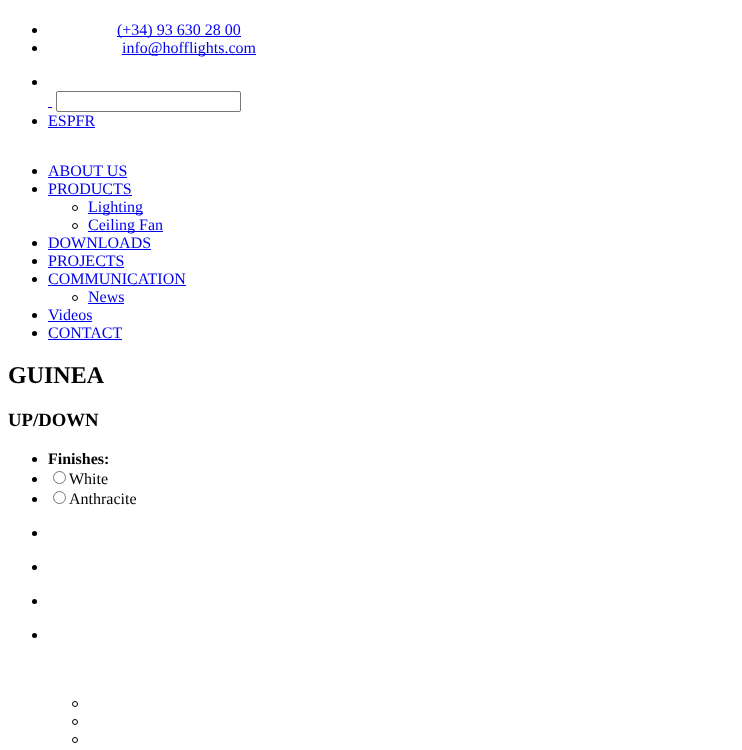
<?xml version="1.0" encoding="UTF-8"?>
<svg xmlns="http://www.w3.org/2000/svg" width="742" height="750">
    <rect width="100%" height="100%" fill="#FFFFFF"/>
    <circle cx="34.5" cy="30.5" r="2.5" fill="#000000"/>
    <rect x="117" y="36" width="124" height="1" fill="#0000EE"/>
    <text x="117" y="35" font-family="Liberation Serif" font-size="16" fill="#0000EE">(+34) 93 630 28 00</text>
    <circle cx="34.5" cy="48.5" r="2.5" fill="#000000"/>
    <rect x="122" y="54" width="134" height="1" fill="#0000EE"/>
    <text x="122" y="53" font-family="Liberation Serif" font-size="16" fill="#0000EE">info@hofflights.com</text>
    <circle cx="34.5" cy="82.5" r="2.5" fill="#000000"/>
    <rect x="48" y="107" width="4" height="1" fill="#0000EE"/>
    <rect x="56.5" y="91.5" width="184" height="20" rx="1.5" fill="none" stroke="#767676"/>
    <circle cx="34.5" cy="121.5" r="2.5" fill="#000000"/>
    <text x="48" y="126" font-family="Liberation Serif" font-size="16" fill="#0000EE">ESPFR</text>
    <rect x="48" y="127" width="47" height="1" fill="#0000EE"/>
    <circle cx="34.5" cy="171.5" r="2.5" fill="#000000"/>
    <text x="48" y="176" font-family="Liberation Serif" font-size="16" fill="#0000EE">ABOUT US</text>
    <rect x="48" y="177" width="79" height="1" fill="#0000EE"/>
    <circle cx="34.5" cy="189.5" r="2.5" fill="#000000"/>
    <text x="48" y="194" font-family="Liberation Serif" font-size="16" fill="#0000EE">PRODUCTS</text>
    <rect x="48" y="195" width="84" height="1" fill="#0000EE"/>
    <circle cx="75" cy="208" r="2.5" fill="none" stroke="#000000"/>
    <rect x="88" y="213" width="55" height="1" fill="#0000EE"/>
    <text x="88" y="212" font-family="Liberation Serif" font-size="16" fill="#0000EE">Lighting</text>
    <circle cx="75" cy="226" r="2.5" fill="none" stroke="#000000"/>
    <rect x="88" y="231" width="75" height="1" fill="#0000EE"/>
    <text x="88" y="230" font-family="Liberation Serif" font-size="16" fill="#0000EE">Ceiling Fan</text>
    <circle cx="34.5" cy="243.5" r="2.5" fill="#000000"/>
    <text x="48" y="248" font-family="Liberation Serif" font-size="16" fill="#0000EE">DOWNLOADS</text>
    <rect x="48" y="249" width="103" height="1" fill="#0000EE"/>
    <circle cx="34.5" cy="261.5" r="2.5" fill="#000000"/>
    <text x="48" y="266" font-family="Liberation Serif" font-size="16" fill="#0000EE">PROJECTS</text>
    <rect x="48" y="267" width="76" height="1" fill="#0000EE"/>
    <circle cx="34.5" cy="279.5" r="2.5" fill="#000000"/>
    <text x="48" y="284" font-family="Liberation Serif" font-size="16" fill="#0000EE">COMMUNICATION</text>
    <rect x="48" y="285" width="138" height="1" fill="#0000EE"/>
    <circle cx="75" cy="298" r="2.5" fill="none" stroke="#000000"/>
    <text x="88" y="302" font-family="Liberation Serif" font-size="16" fill="#0000EE">News</text>
    <rect x="88" y="303" width="36" height="1" fill="#0000EE"/>
    <circle cx="34.5" cy="315.5" r="2.5" fill="#000000"/>
    <text x="48" y="320" font-family="Liberation Serif" font-size="16" fill="#0000EE">Videos</text>
    <rect x="48" y="321" width="44" height="1" fill="#0000EE"/>
    <circle cx="34.5" cy="333.5" r="2.5" fill="#000000"/>
    <text x="48" y="338" font-family="Liberation Serif" font-size="16" fill="#0000EE">CONTACT</text>
    <rect x="48" y="339" width="74" height="1" fill="#0000EE"/>
    <text x="8" y="383" font-family="Liberation Serif" font-size="24" font-weight="700" fill="#000000">GUINEA</text>
    <text x="8" y="426" font-family="Liberation Serif" font-size="18.75" font-weight="700" fill="#000000">UP/DOWN</text>
    <circle cx="34.5" cy="459.5" r="2.5" fill="#000000"/>
    <text x="48" y="464" font-family="Liberation Serif" font-size="16" font-weight="700" fill="#000000">Finishes:</text>
    <circle cx="34.5" cy="479.5" r="2.5" fill="#000000"/>
    <circle cx="59.5" cy="477.5" r="6" fill="none" stroke="#767676"/>
    <text x="69" y="484" font-family="Liberation Serif" font-size="16" fill="#000000">White</text>
    <circle cx="34.5" cy="499.5" r="2.5" fill="#000000"/>
    <circle cx="59.5" cy="497.5" r="6" fill="none" stroke="#767676"/>
    <text x="69" y="504" font-family="Liberation Serif" font-size="16" fill="#000000">Anthracite</text>
    <circle cx="34.5" cy="533.5" r="2.5" fill="#000000"/>
    <circle cx="34.5" cy="567.5" r="2.5" fill="#000000"/>
    <circle cx="34.5" cy="601.5" r="2.5" fill="#000000"/>
    <circle cx="34.5" cy="635.5" r="2.5" fill="#000000"/>
    <circle cx="75" cy="704" r="2.5" fill="none" stroke="#000000"/>
    <circle cx="75" cy="722" r="2.5" fill="none" stroke="#000000"/>
    <circle cx="75" cy="740" r="2.5" fill="none" stroke="#000000"/>
</svg>
